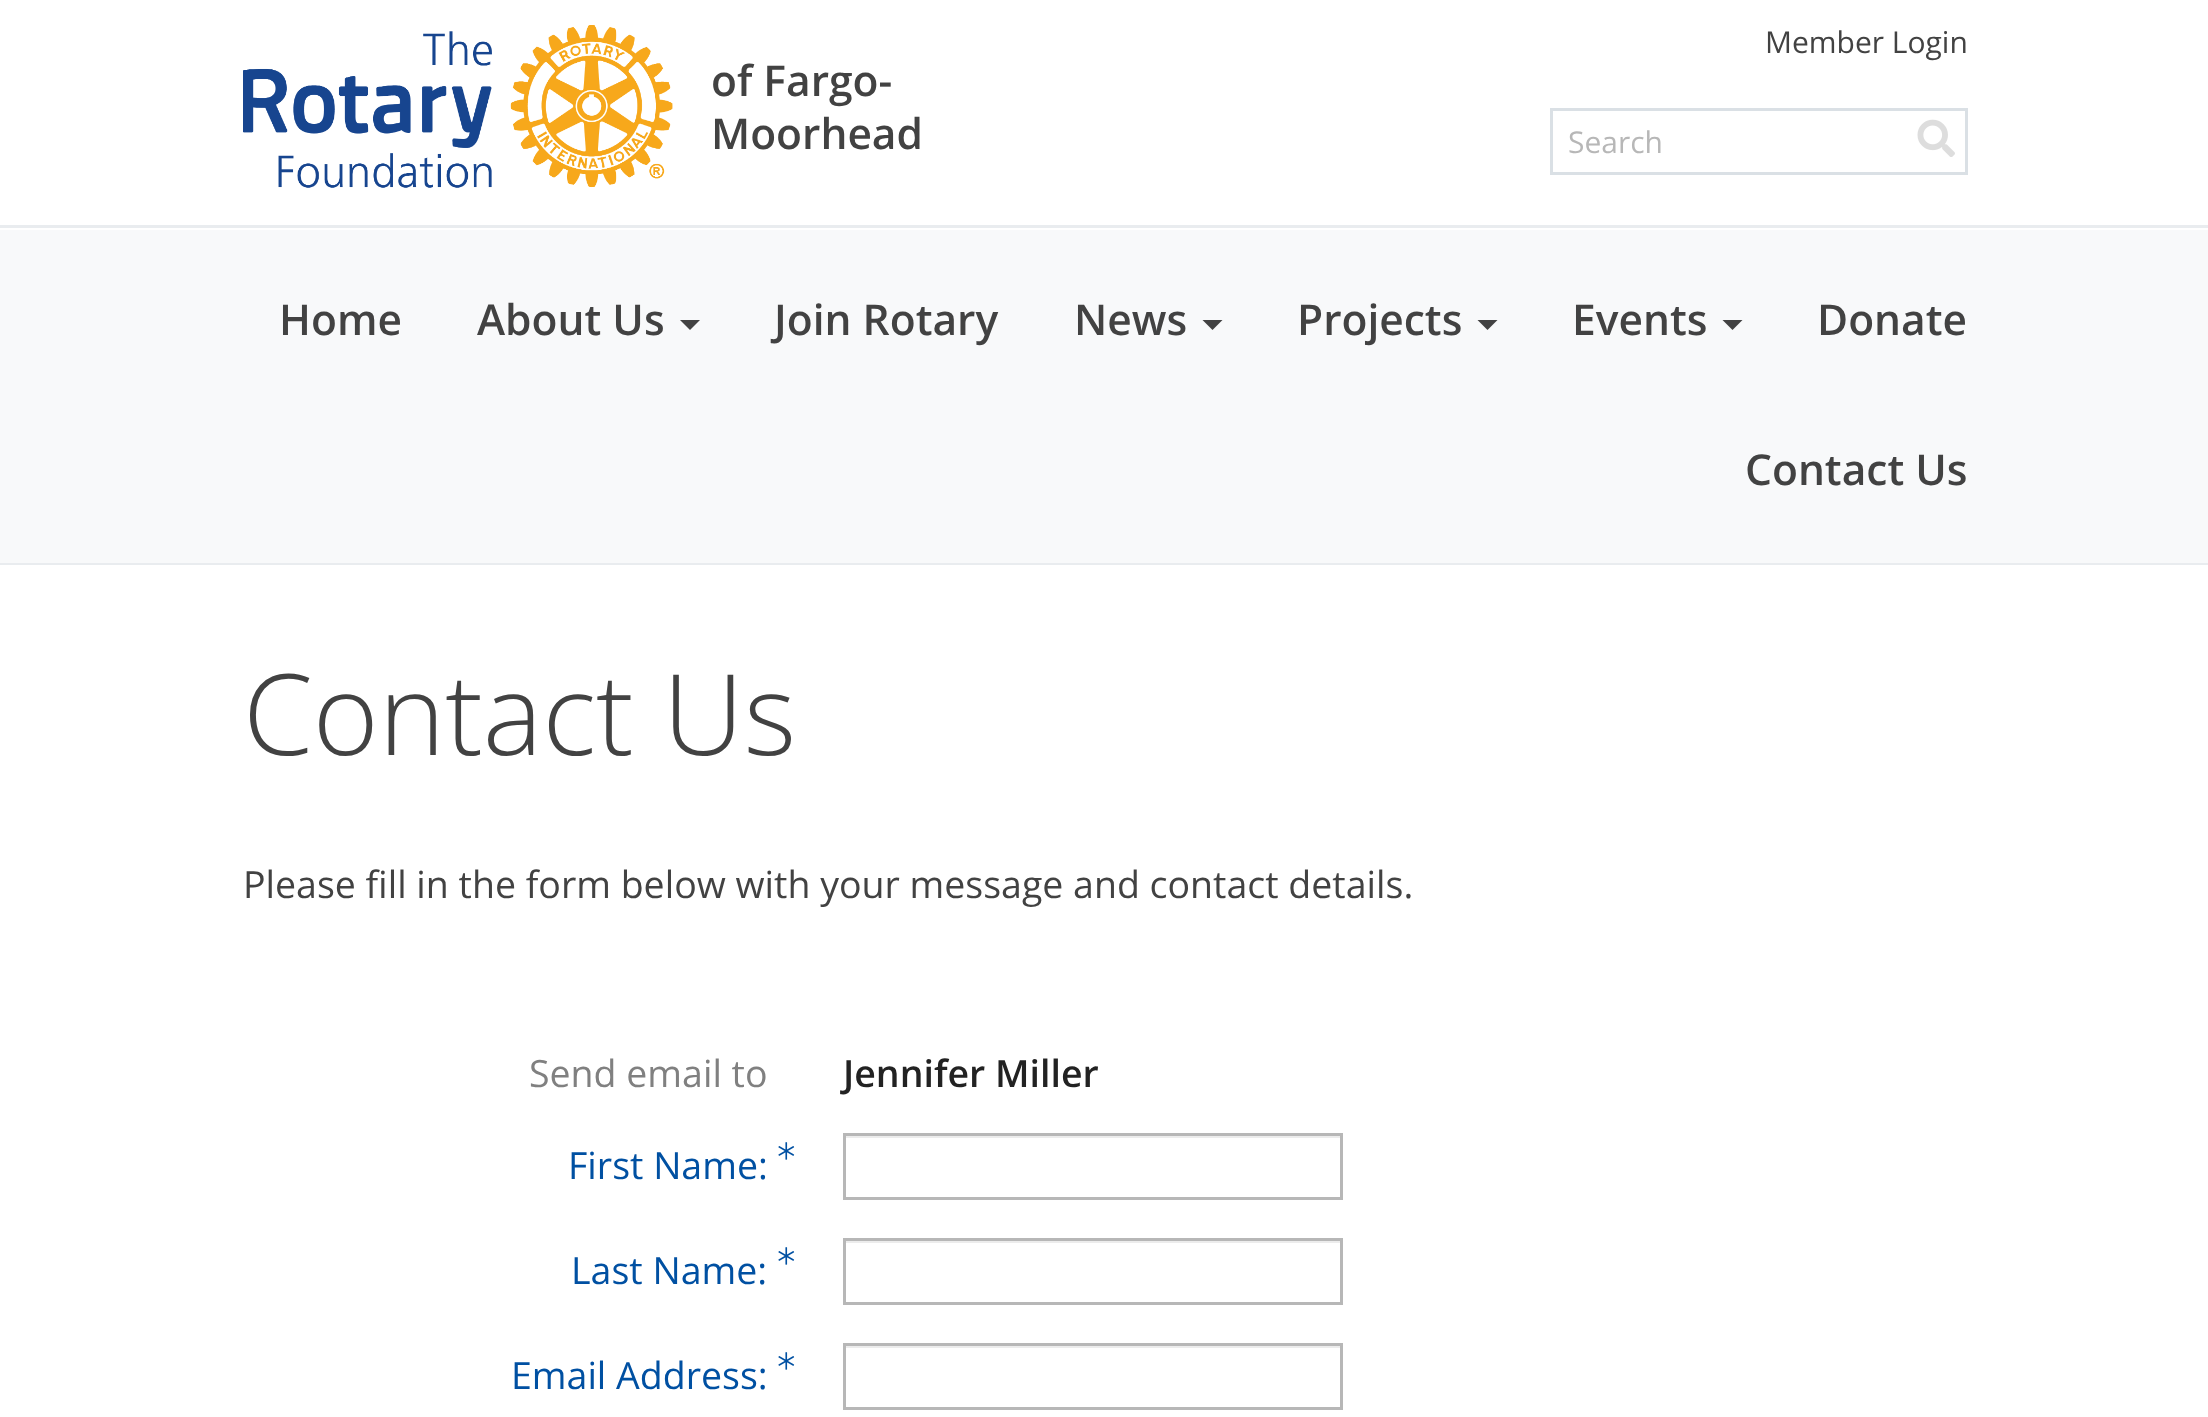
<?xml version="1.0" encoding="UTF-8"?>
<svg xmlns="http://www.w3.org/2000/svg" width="2208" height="1417">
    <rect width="100%" height="100%" fill="#FFFFFF"/>
    <image x="243" y="25" width="430" height="163" href="img_01.png"/>
    <text font-family="Open Sans" font-size="42.5" font-weight="600" fill="#424242">
        <tspan x="711" y="96">of Fargo-</tspan>
        <tspan x="711" y="149">Moorhead</tspan>
    </text>
    <text x="1765" y="53" font-family="Open Sans" font-size="30" fill="#424242">Member Login</text>
    <rect x="1551.5" y="109.5" width="415" height="64" fill="none" stroke="#DAE0E5" stroke-width="3"/>
    <text x="1568" y="153" font-family="Open Sans" font-size="30" fill="#B7B7B7">Search</text>
    <image x="1917" y="119" width="38" height="38" href="img_02.png"/>
    <rect x="0" y="225" width="2208" height="3" fill="#E9ECEF"/>
    <rect x="0" y="230" width="2208" height="333" fill="#F8F9FA"/>
    <rect x="0" y="563" width="2208" height="2" fill="#E9ECEF"/>
    <text x="279" y="335" font-family="Open Sans" font-size="42.5" font-weight="600" fill="#424242">Home</text>
    <text x="477" y="335" font-family="Open Sans" font-size="42.5" font-weight="600" fill="#424242">About Us</text>
    <path d="M 680 320 H 700 L 690 330 Z" fill="#424242"/>
    <text x="774" y="335" font-family="Open Sans" font-size="42.5" font-weight="600" fill="#424242">Join Rotary</text>
    <text x="1074" y="335" font-family="Open Sans" font-size="42.5" font-weight="600" fill="#424242">News</text>
    <path d="M 1202.5 320 H 1222.5 L 1212.5 330 Z" fill="#424242"/>
    <text x="1297" y="335" font-family="Open Sans" font-size="42.5" font-weight="600" fill="#424242">Projects</text>
    <path d="M 1477.5 320 H 1497.5 L 1487.5 330 Z" fill="#424242"/>
    <text x="1572" y="335" font-family="Open Sans" font-size="42.5" font-weight="600" fill="#424242">Events</text>
    <path d="M 1722.5 320 H 1742.5 L 1732.5 330 Z" fill="#424242"/>
    <text x="1817" y="335" font-family="Open Sans" font-size="42.5" font-weight="600" fill="#424242">Donate</text>
    <text x="1745" y="485" font-family="Open Sans" font-size="42.5" font-weight="600" fill="#424242">Contact Us</text>
    <text x="243" y="755" font-family="Open Sans" font-size="112.5" font-weight="300" fill="#424242">Contact Us</text>
    <text x="243" y="898" font-family="Open Sans" font-size="37.5" fill="#424242">Please fill in the form below with your message and contact details.</text>
    <text x="529" y="1087" font-family="Open Sans" font-size="37.5" fill="#808080">Send email to</text>
    <text x="843" y="1087" font-family="Open Sans" font-size="37.5" font-weight="600" fill="#222222">Jennifer Miller</text>
    <text x="568" y="1179" font-family="Open Sans" font-size="37.5" fill="#0050A2">First Name:</text>
    <image x="778" y="1142" width="17" height="18" href="img_03.png"/>
    <rect x="845" y="1136" width="495" height="2" fill="#ECECEC"/>
    <rect x="844.5" y="1134.5" width="497" height="64" fill="none" stroke="#B7B7B7" stroke-width="3"/>
    <text x="571" y="1284" font-family="Open Sans" font-size="37.5" fill="#0050A2">Last Name:</text>
    <image x="778" y="1247" width="17" height="18" href="img_03.png"/>
    <rect x="845" y="1241" width="495" height="2" fill="#ECECEC"/>
    <rect x="844.5" y="1239.5" width="497" height="64" fill="none" stroke="#B7B7B7" stroke-width="3"/>
    <text x="511" y="1389" font-family="Open Sans" font-size="37.5" fill="#0050A2">Email Address:</text>
    <image x="778" y="1352" width="17" height="18" href="img_03.png"/>
    <rect x="845" y="1346" width="495" height="2" fill="#ECECEC"/>
    <rect x="844.5" y="1344.5" width="497" height="64" fill="none" stroke="#B7B7B7" stroke-width="3"/>
</svg>
